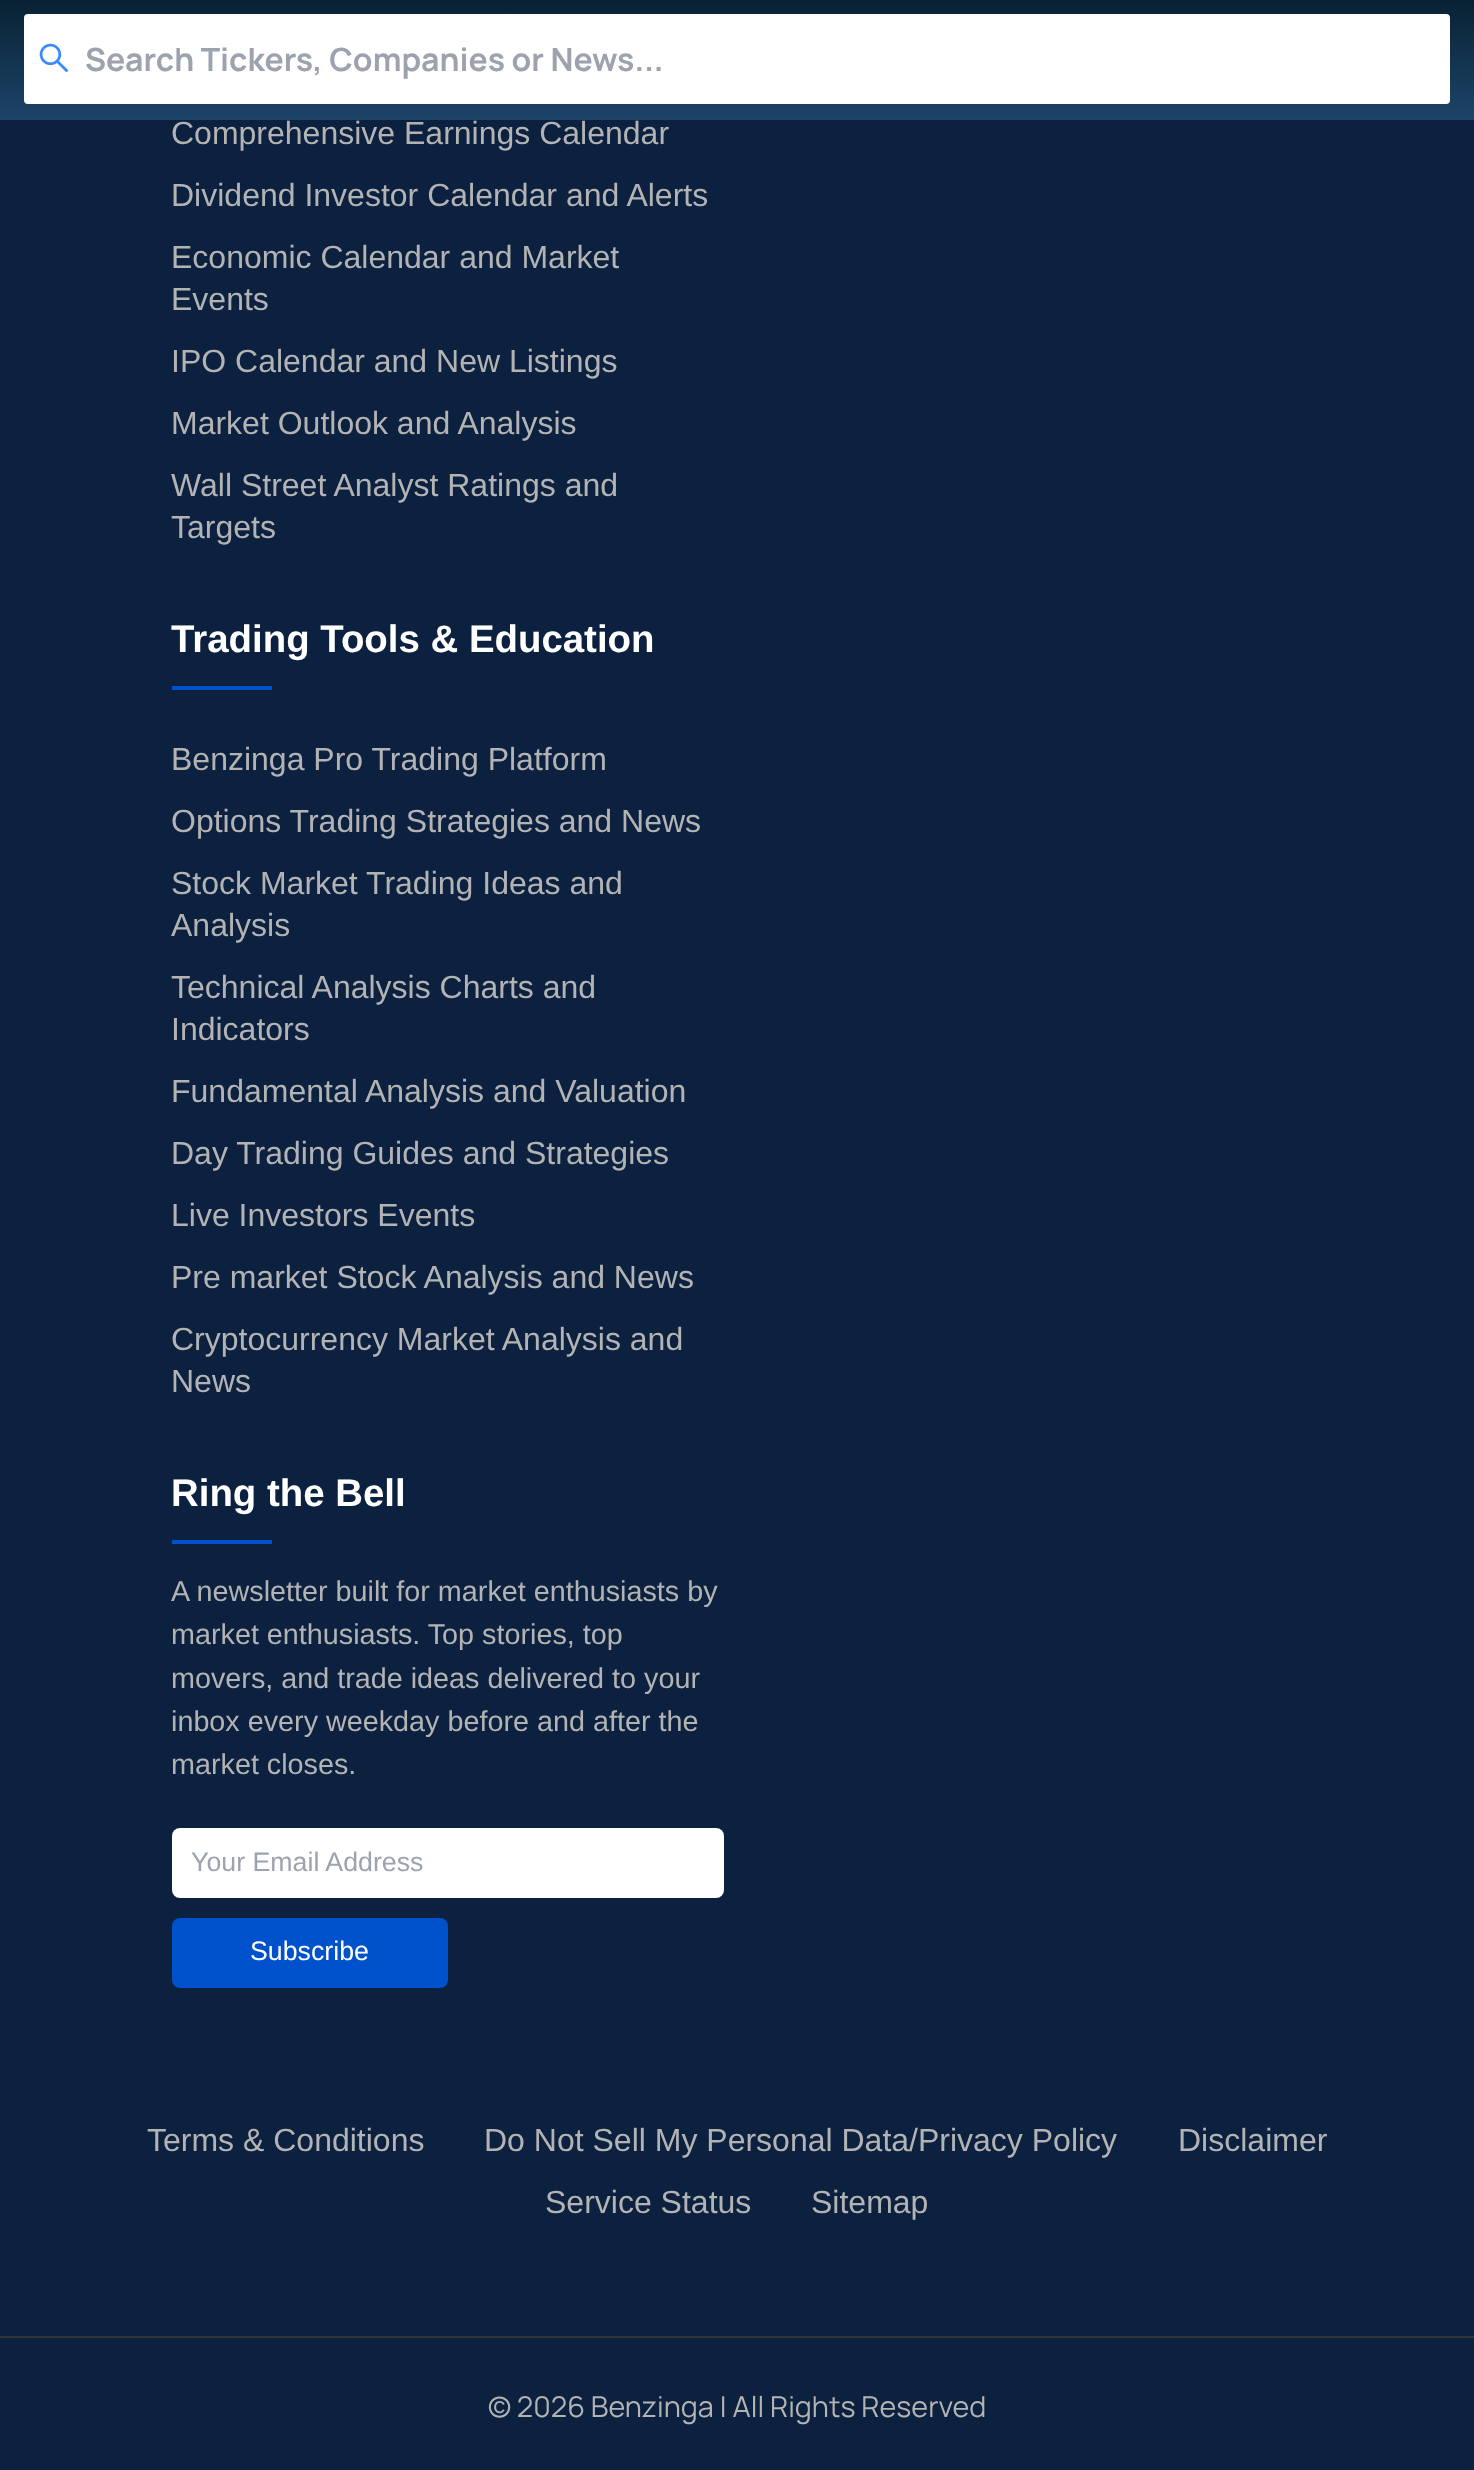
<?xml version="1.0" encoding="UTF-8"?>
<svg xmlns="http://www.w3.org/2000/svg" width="1474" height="2470">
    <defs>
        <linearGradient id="g1" gradientUnits="userSpaceOnUse" x1="737" y1="-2" x2="737" y2="120"><stop offset="0" stop-color="#082132"/><stop offset="1" stop-color="#1D446A"/></linearGradient>
    </defs>
    <rect width="100%" height="100%" fill="#0C2140"/>
    <rect x="0" y="0" width="1474" height="120" fill="url(#g1)"/>
    <rect x="24" y="14" width="1426" height="90" rx="4" fill="#FFFFFF"/>
    <image x="39" y="43" width="30" height="30" href="img_01.png"/>
    <text x="85" y="71" font-family="'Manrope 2'" font-size="32" font-weight="200" fill="#9CA3AF">Search Tickers, Companies or News...</text>
    <text font-family="Liberation Sans" font-size="32" fill="#B3B3B3">
        <tspan x="171" y="144">Comprehensive Earnings Calendar</tspan>
        <tspan x="171" y="206">Dividend Investor Calendar and Alerts</tspan>
        <tspan x="171" y="268">Economic Calendar and Market</tspan>
        <tspan x="171" y="310">Events</tspan>
        <tspan x="171" y="372">IPO Calendar and New Listings</tspan>
        <tspan x="171" y="434">Market Outlook and Analysis</tspan>
        <tspan x="171" y="496">Wall Street Analyst Ratings and</tspan>
        <tspan x="171" y="538">Targets</tspan>
    </text>
    <text x="171" y="652" font-family="Liberation Sans" font-size="38.4" font-weight="700" fill="#FFFFFF">Trading Tools &amp; Education</text>
    <rect x="172" y="686" width="100" height="4" fill="#0052CC"/>
    <text font-family="Liberation Sans" font-size="32" fill="#B3B3B3">
        <tspan x="171" y="770">Benzinga Pro Trading Platform</tspan>
        <tspan x="171" y="832">Options Trading Strategies and News</tspan>
        <tspan x="171" y="894">Stock Market Trading Ideas and</tspan>
        <tspan x="171" y="936">Analysis</tspan>
        <tspan x="171" y="998">Technical Analysis Charts and</tspan>
        <tspan x="171" y="1040">Indicators</tspan>
        <tspan x="171" y="1102">Fundamental Analysis and Valuation</tspan>
        <tspan x="171" y="1164">Day Trading Guides and Strategies</tspan>
        <tspan x="171" y="1226">Live Investors Events</tspan>
        <tspan x="171" y="1288">Pre market Stock Analysis and News</tspan>
        <tspan x="171" y="1350">Cryptocurrency Market Analysis and</tspan>
        <tspan x="171" y="1392">News</tspan>
    </text>
    <text x="171" y="1506" font-family="Liberation Sans" font-size="38.4" font-weight="700" fill="#FFFFFF">Ring the Bell</text>
    <rect x="172" y="1540" width="100" height="4" fill="#0052CC"/>
    <text font-family="Liberation Sans" font-size="28.75" fill="#B3B3B3">
        <tspan x="171" y="1601">A newsletter built for market enthusiasts by</tspan>
        <tspan x="171" y="1644">market enthusiasts. Top stories, top</tspan>
        <tspan x="171" y="1688">movers, and trade ideas delivered to your</tspan>
        <tspan x="171" y="1731">inbox every weekday before and after the</tspan>
        <tspan x="171" y="1774">market closes.</tspan>
    </text>
    <rect x="172" y="1828" width="552" height="70" rx="8" fill="#FFFFFF"/>
    <text x="191" y="1871" font-family="Liberation Sans" font-size="26.75" fill="#9CA3AF">Your Email Address</text>
    <rect x="172" y="1918" width="276" height="70" rx="8" fill="#0052CC"/>
    <text x="250" y="1960" font-family="Liberation Sans" font-size="26.75" fill="#FFFFFF">Subscribe</text>
    <text x="147" y="2151" font-family="Liberation Sans" font-size="32" fill="#B3B3B3">Terms &amp; Conditions</text>
    <text x="484" y="2151" font-family="Liberation Sans" font-size="32" fill="#B3B3B3">Do Not Sell My Personal Data/Privacy Policy</text>
    <text x="1178" y="2151" font-family="Liberation Sans" font-size="32" fill="#B3B3B3">Disclaimer</text>
    <text x="545" y="2213" font-family="Liberation Sans" font-size="32" fill="#B3B3B3">Service Status</text>
    <text x="811" y="2213" font-family="Liberation Sans" font-size="32" fill="#B3B3B3">Sitemap</text>
    <rect x="0" y="2336" width="1474" height="2" fill="#333333"/>
    <text x="488" y="2417" font-family="Manrope" font-size="28.75" font-weight="200" fill="#B3B3B3">© 2026 Benzinga | All Rights Reserved</text>
</svg>
